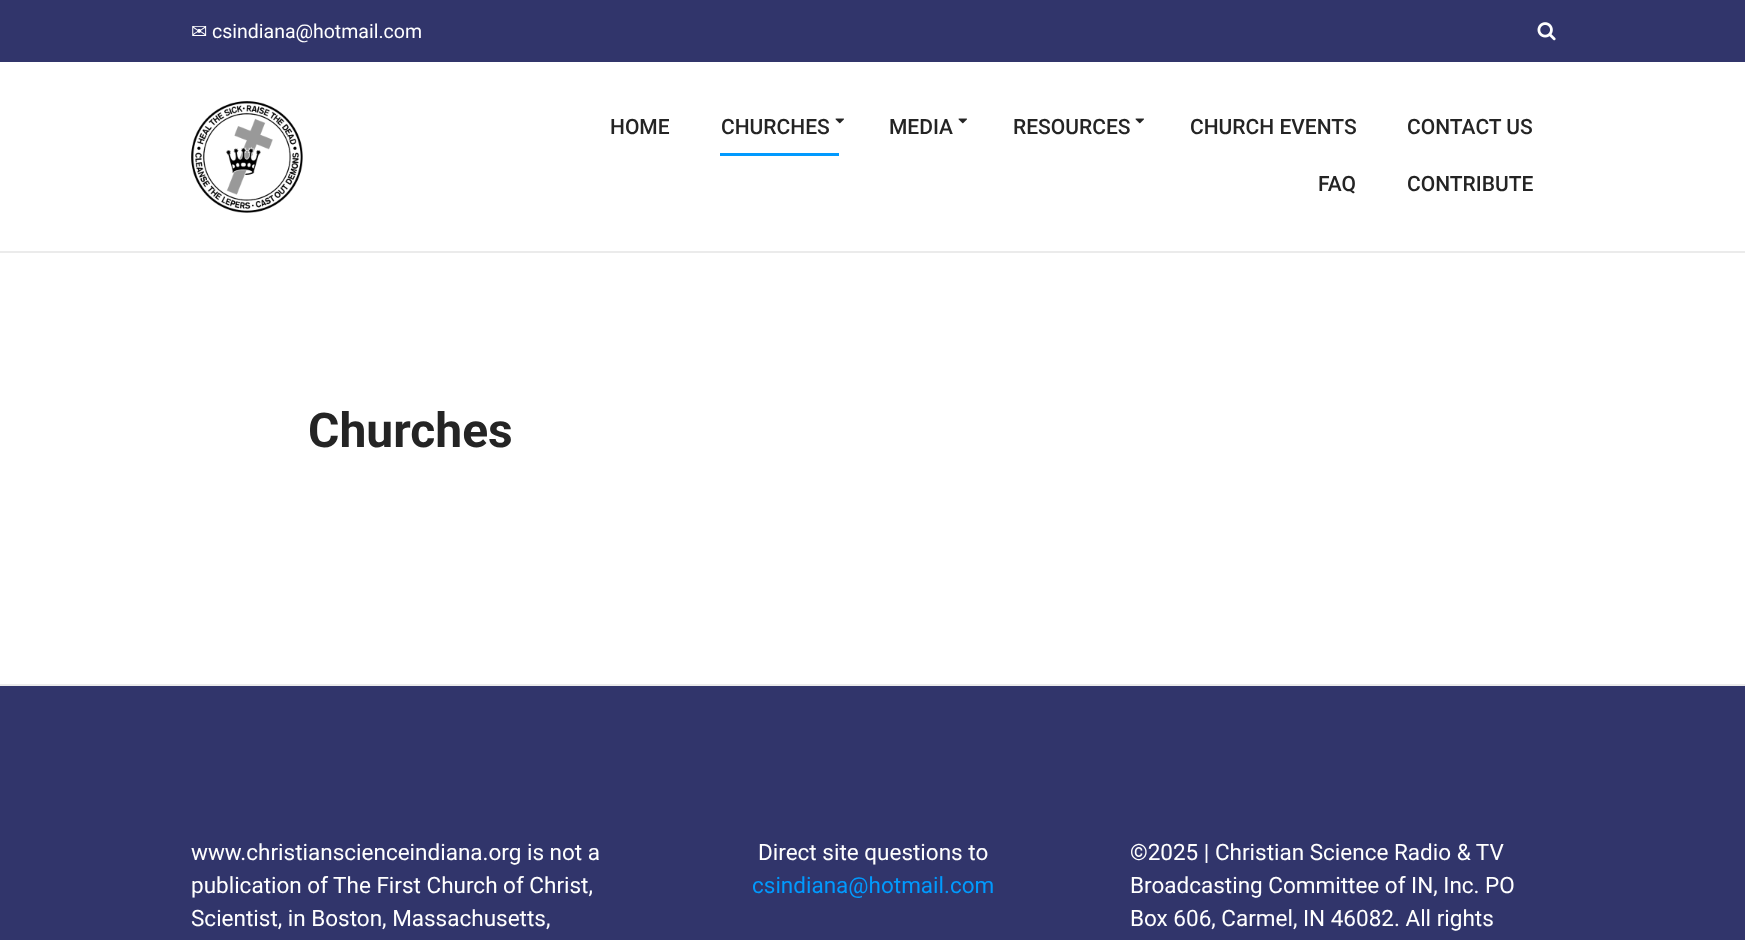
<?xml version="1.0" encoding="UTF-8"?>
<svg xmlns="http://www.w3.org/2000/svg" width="1745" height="940">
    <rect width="100%" height="100%" fill="#FFFFFF"/>
    <rect x="0" y="0" width="1745" height="62" fill="#31356B"/>
    <text x="191" y="38" font-family="DejaVu Sans" font-size="19.5" fill="#FFFFFF">✉</text>
    <text x="212" y="38" font-family="Roboto" font-size="19.5" fill="#FFFFFF">csindiana@hotmail.com</text>
    <image x="1537" y="22" width="19" height="19" href="img_01.png"/>
    <rect x="0" y="251" width="1745" height="2" fill="#EBEBEB"/>
    <image x="191" y="101" width="112" height="112" href="img_02.png"/>
    <text x="610" y="134" font-family="Roboto" font-size="21" font-weight="500" fill="#242424">HOME</text>
    <rect x="720" y="153" width="119" height="3" fill="#019AFE"/>
    <text x="721" y="134" font-family="Roboto" font-size="21" font-weight="500" fill="#242424">CHURCHES</text>
    <image x="835" y="118" width="9" height="6" href="img_03.png"/>
    <text x="889" y="134" font-family="Roboto" font-size="21" font-weight="500" fill="#242424">MEDIA</text>
    <image x="958" y="118" width="9" height="6" href="img_03.png"/>
    <text x="1013" y="134" font-family="Roboto" font-size="21" font-weight="500" fill="#242424">RESOURCES</text>
    <image x="1135" y="118" width="9" height="6" href="img_03.png"/>
    <text x="1190" y="134" font-family="Roboto" font-size="21" font-weight="500" fill="#242424">CHURCH EVENTS</text>
    <text x="1407" y="134" font-family="Roboto" font-size="21" font-weight="500" fill="#242424">CONTACT US</text>
    <text x="1318" y="191" font-family="Roboto" font-size="21" font-weight="500" fill="#242424">FAQ</text>
    <text x="1407" y="191" font-family="Roboto" font-size="21" font-weight="500" fill="#242424">CONTRIBUTE</text>
    <text x="308" y="447" font-family="Roboto" font-size="48" font-weight="700" fill="#242424">Churches</text>
    <rect x="0" y="686" width="1745" height="254" fill="#31356B"/>
    <rect x="0" y="684" width="1745" height="2" fill="#EBEBEB"/>
    <text font-family="Roboto" font-size="22.5" fill="#FFFFFF">
        <tspan x="191" y="860">www.christianscienceindiana.org is not a</tspan>
        <tspan x="191" y="893">publication of The First Church of Christ,</tspan>
        <tspan x="191" y="926">Scientist, in Boston, Massachusetts,</tspan>
    </text>
    <text x="758" y="860" font-family="Roboto" font-size="22.5" fill="#FFFFFF">Direct site questions to</text>
    <text x="752" y="893" font-family="Roboto" font-size="22.5" fill="#019AFE">csindiana@hotmail.com</text>
    <text font-family="Roboto" font-size="22.5" fill="#FFFFFF">
        <tspan x="1130" y="860">©2025 | Christian Science Radio &amp; TV</tspan>
        <tspan x="1130" y="893">Broadcasting Committee of IN, Inc. PO</tspan>
        <tspan x="1130" y="926">Box 606, Carmel, IN 46082. All rights</tspan>
    </text>
</svg>
